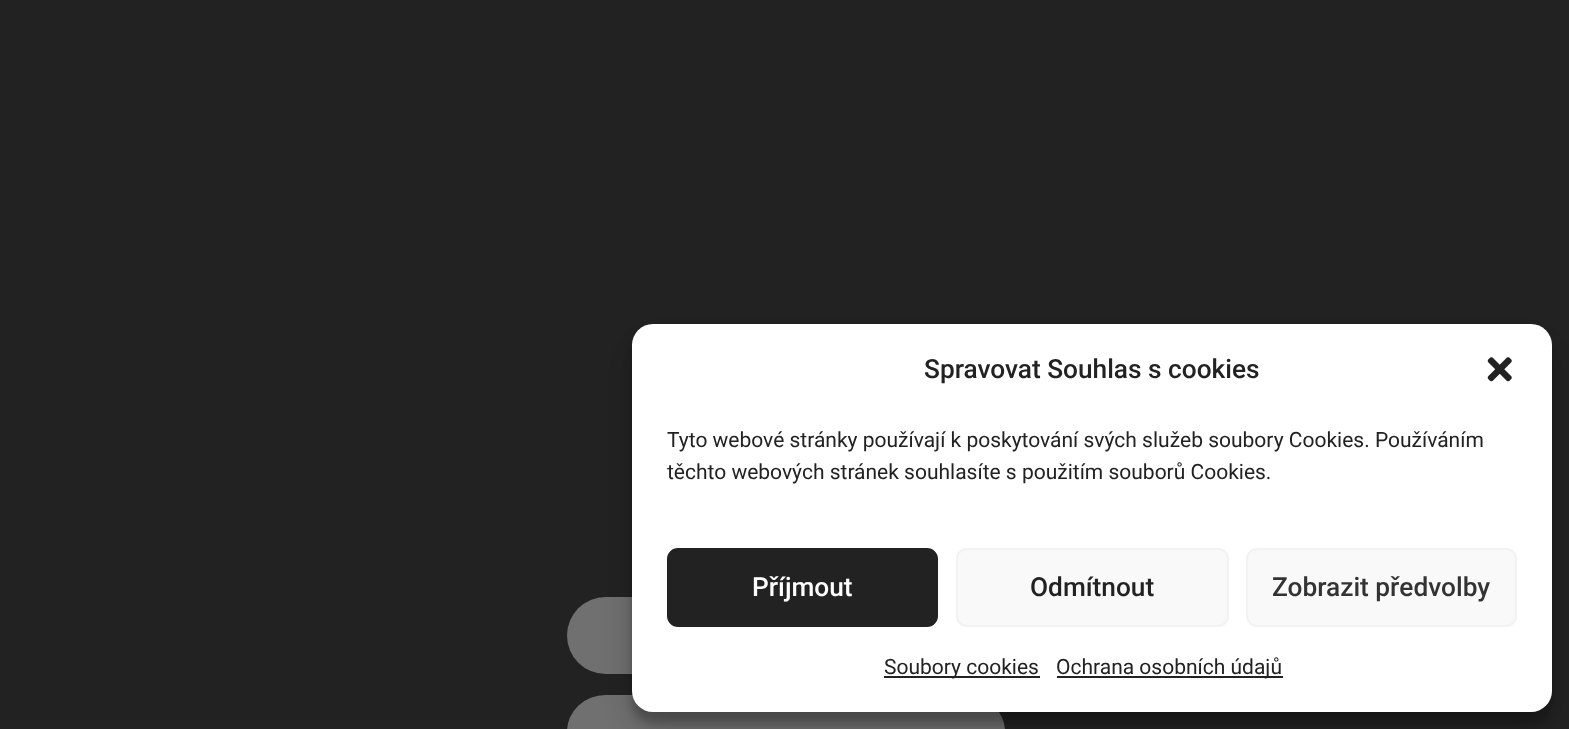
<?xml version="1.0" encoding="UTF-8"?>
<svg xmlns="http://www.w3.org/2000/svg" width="1569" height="729">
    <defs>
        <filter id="blur1" x="-50%" y="-200%" width="200%" height="500%"><feGaussianBlur stdDeviation="5"/></filter>
        <filter id="blur2" x="-50%" y="-200%" width="200%" height="500%"><feGaussianBlur stdDeviation="17.5"/></filter>
    </defs>
    <rect width="100%" height="100%" fill="#222222"/>
    <rect x="567" y="597" width="438" height="77" rx="38.5" fill="#707070"/>
    <rect x="567" y="695" width="438" height="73" rx="38.5" fill="#707070"/>
    <rect x="632" y="334" width="920" height="389" rx="21" fill="#000000" fill-opacity="0.23" filter="url(#blur1)"/>
    <rect x="632" y="341" width="920" height="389" rx="21" fill="#000000" fill-opacity="0.19" filter="url(#blur2)"/>
    <rect x="632" y="324" width="920" height="388" rx="21" fill="#FFFFFF"/>
    <text x="924" y="378" font-family="Roboto" font-size="26.25" font-weight="500" fill="#222222">Spravovat Souhlas s cookies</text>
    <image x="1487" y="357" width="25" height="25" href="img_01.png"/>
    <text font-family="Roboto" font-size="21" fill="#222222">
        <tspan x="667" y="447">Tyto webové stránky používají k poskytování svých služeb soubory Cookies. Používáním</tspan>
        <tspan x="667" y="479">těchto webových stránek souhlasíte s použitím souborů Cookies.</tspan>
    </text>
    <rect x="668" y="549" width="269" height="77" rx="10" fill="#222222" stroke="#222222" stroke-width="2"/>
    <text x="752" y="596" font-family="Roboto" font-size="26.25" font-weight="500" fill="#FFFFFF">Příjmout</text>
    <rect x="957" y="549" width="271" height="77" rx="10" fill="#F9F9F9" stroke="#F2F2F2" stroke-width="2"/>
    <text x="1030" y="596" font-family="Roboto" font-size="26.25" font-weight="500" fill="#222222">Odmítnout</text>
    <rect x="1247" y="549" width="269" height="77" rx="10" fill="#F9F9F9" stroke="#F2F2F2" stroke-width="2"/>
    <text x="1272" y="596" font-family="Roboto" font-size="26.25" font-weight="500" fill="#333333">Zobrazit předvolby</text>
    <rect x="884" y="676" width="156" height="2" fill="#222222"/>
    <text x="884" y="674" font-family="Roboto" font-size="21" fill="#222222">Soubory cookies</text>
    <rect x="1057" y="676" width="226" height="2" fill="#222222"/>
    <text x="1056" y="674" font-family="Roboto" font-size="21" fill="#222222">Ochrana osobních údajů</text>
</svg>
